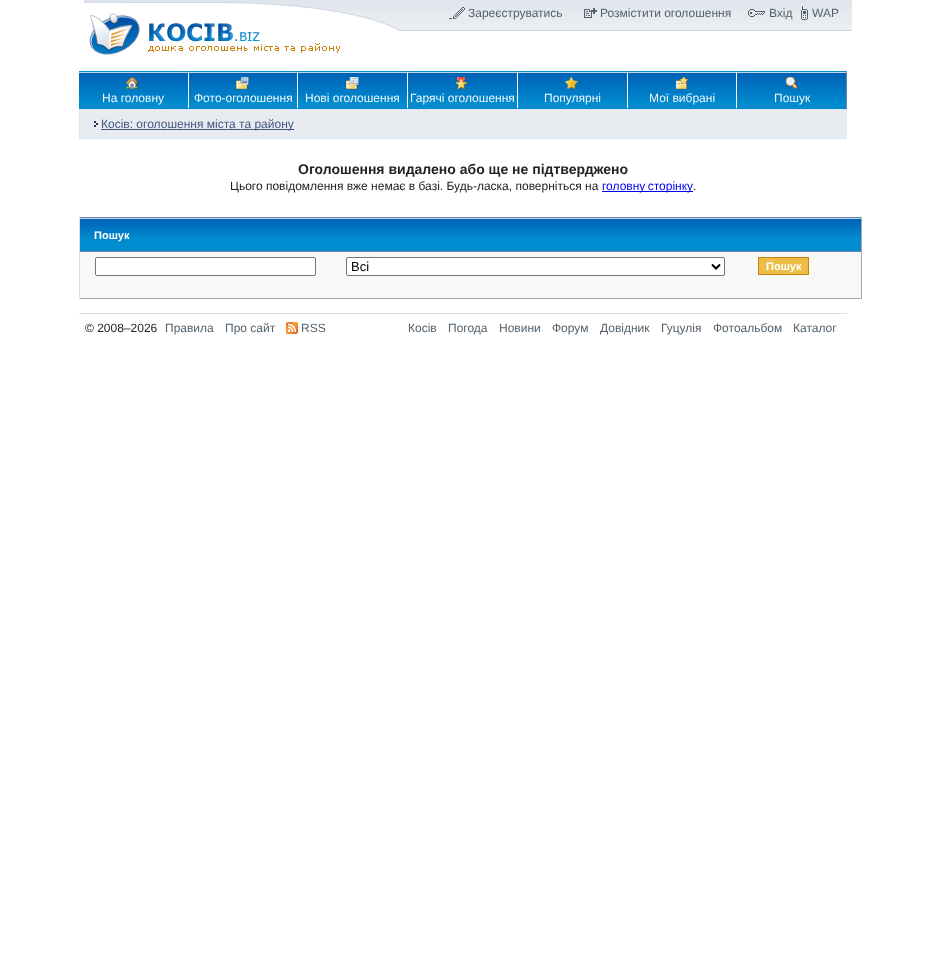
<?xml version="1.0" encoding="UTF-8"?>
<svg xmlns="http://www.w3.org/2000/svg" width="926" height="968">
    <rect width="100%" height="100%" fill="#FFFFFF"/>
    <image x="400" y="0" width="452" height="31" href="img_01.png"/>
    <image x="84" y="0" width="316" height="55" href="img_02.png"/>
    <image x="449" y="7" width="16" height="12" href="img_03.png"/>
    <text x="468" y="17" font-family="Liberation Sans" font-size="12" fill="#53626D">Зареєструватись</text>
    <image x="584" y="8" width="13" height="10" href="img_04.png"/>
    <text x="600" y="17" font-family="Liberation Sans" font-size="12" fill="#53626D">Розмістити оголошення</text>
    <image x="748" y="9" width="17" height="8" href="img_05.png"/>
    <text x="769" y="17" font-family="Liberation Sans" font-size="12" fill="#53626D">Вхід</text>
    <image x="801" y="6" width="7" height="14" href="img_06.png"/>
    <text x="812" y="17" font-family="Liberation Sans" font-size="12" fill="#53626D">WAP</text>
    <rect x="79.5" y="71.5" width="767" height="37" fill="none" stroke="#6882AD"/>
    <rect x="79" y="71" width="109" height="38" fill="#008CCE"/>
    <image x="79" y="72" width="109" height="30" href="img_07.png"/>
    <image x="126" y="77" width="13" height="12" href="img_08.png"/>
    <text x="102" y="102" font-family="Liberation Sans" font-size="12" fill="#EDF7FD">На головну</text>
    <rect x="189" y="71" width="108" height="38" fill="#008CCE"/>
    <image x="189" y="72" width="108" height="30" href="img_09.png"/>
    <image x="236" y="77" width="13" height="12" href="img_10.png"/>
    <text x="194" y="102" font-family="Liberation Sans" font-size="12" fill="#EDF7FD">Фото-оголошення</text>
    <rect x="298" y="71" width="109" height="38" fill="#008CCE"/>
    <image x="298" y="72" width="109" height="30" href="img_07.png"/>
    <image x="346" y="77" width="13" height="12" href="img_11.png"/>
    <text x="305" y="102" font-family="Liberation Sans" font-size="12" fill="#EDF7FD">Нові оголошення</text>
    <rect x="408" y="71" width="109" height="38" fill="#008CCE"/>
    <image x="408" y="72" width="109" height="30" href="img_07.png"/>
    <image x="456" y="77" width="12" height="12" href="img_12.png"/>
    <text x="410" y="102" font-family="Liberation Sans" font-size="12" fill="#EDF7FD">Гарячі оголошення</text>
    <rect x="518" y="71" width="109" height="38" fill="#008CCE"/>
    <image x="518" y="72" width="109" height="30" href="img_07.png"/>
    <image x="565" y="77" width="13" height="12" href="img_13.png"/>
    <text x="544" y="102" font-family="Liberation Sans" font-size="12" fill="#EDF7FD">Популярні</text>
    <rect x="628" y="71" width="108" height="38" fill="#008CCE"/>
    <image x="628" y="72" width="108" height="30" href="img_09.png"/>
    <image x="676" y="77" width="12" height="12" href="img_14.png"/>
    <text x="649" y="102" font-family="Liberation Sans" font-size="12" fill="#EDF7FD">Мої вибрані</text>
    <rect x="737" y="71" width="109" height="38" fill="#008CCE"/>
    <image x="737" y="72" width="109" height="30" href="img_07.png"/>
    <image x="786" y="77" width="12" height="12" href="img_15.png"/>
    <text x="774" y="102" font-family="Liberation Sans" font-size="12" fill="#EDF7FD">Пошук</text>
    <rect x="79.5" y="109.5" width="767" height="29" fill="#E8EBF0" stroke="#DBE8FA"/>
    <image x="94" y="121" width="4" height="6" href="img_16.png"/>
    <rect x="101" y="129" width="193" height="1" fill="#41597F"/>
    <text x="101" y="128" font-family="Liberation Sans" font-size="12" fill="#41597F">Косів: оголошення міста та району</text>
    <text x="298" y="174" font-family="Liberation Sans" font-size="14" font-weight="700" fill="#222222">Оголошення видалено або ще не підтверджено</text>
    <text x="230" y="190" font-family="Liberation Sans" font-size="12" fill="#222222">Цього повідомлення вже немає в базі. Будь-ласка, поверніться на</text>
    <rect x="602" y="191" width="91" height="1" fill="#0000EE"/>
    <text x="602" y="190" word-spacing="-1" font-family="Liberation Sans" font-size="12" fill="#0000EE">головну сторінку</text>
    <text x="693" y="190" font-family="Liberation Sans" font-size="12" fill="#222222">.</text>
    <rect x="80" y="252" width="781" height="46" fill="#F8F8F8"/>
    <rect x="861" y="217" width="1" height="82" fill="#A3AAB7"/>
    <rect x="79" y="298" width="783" height="1" fill="#A3AAB7"/>
    <rect x="79" y="217" width="1" height="82" fill="#DEDEDE"/>
    <rect x="80" y="238" width="781" height="13" fill="#008CCE"/>
    <image x="80" y="218" width="781" height="20" href="img_17.png"/>
    <rect x="80" y="217" width="781" height="1" fill="#6882AD"/>
    <rect x="80" y="251" width="781" height="1" fill="#6882AD"/>
    <text x="94" y="239" font-family="Liberation Sans" font-size="11" font-weight="700" fill="#FFFFFF">Пошук</text>
    <rect x="95.5" y="257.5" width="220" height="18" rx="1.5" fill="#FFFFFF" stroke="#767676"/>
    <rect x="346.5" y="257.5" width="378" height="18" rx="1.5" fill="#FFFFFF" stroke="#767676"/>
    <path d="M 712 264.5 L 716 268.5 L 720 264.5" fill="none" stroke="#000000" stroke-width="2"/>
    <text x="351" y="271" font-family="Liberation Sans" font-size="13" fill="#000000">Всі</text>
    <rect x="758.5" y="257.5" width="50" height="17" fill="#ECBE47" stroke="#CC810D"/>
    <text x="766" y="270" font-family="Liberation Sans" font-size="11" font-weight="700" fill="#FFFFFF">Пошук</text>
    <rect x="79" y="313" width="768" height="1" fill="#DEDEDE"/>
    <text x="85" y="332" font-family="Liberation Sans" font-size="12" fill="#222222">© 2008–2026</text>
    <text x="165" y="332" font-family="Liberation Sans" font-size="12" fill="#53626D">Правила</text>
    <text x="225" y="332" font-family="Liberation Sans" font-size="12" fill="#53626D">Про сайт</text>
    <image x="286" y="322" width="12" height="12" href="img_18.png"/>
    <text x="301" y="332" font-family="Liberation Sans" font-size="12" fill="#53626D">RSS</text>
    <text x="408" y="332" font-family="Liberation Sans" font-size="12" fill="#53626D">Косів</text>
    <text x="448" y="332" font-family="Liberation Sans" font-size="12" fill="#53626D">Погода</text>
    <text x="499" y="332" font-family="Liberation Sans" font-size="12" fill="#53626D">Новини</text>
    <text x="552" y="332" font-family="Liberation Sans" font-size="12" fill="#53626D">Форум</text>
    <text x="600" y="332" font-family="Liberation Sans" font-size="12" fill="#53626D">Довідник</text>
    <text x="661" y="332" font-family="Liberation Sans" font-size="12" fill="#53626D">Гуцулія</text>
    <text x="713" y="332" font-family="Liberation Sans" font-size="12" fill="#53626D">Фотоальбом</text>
    <text x="793" y="332" font-family="Liberation Sans" font-size="12" fill="#53626D">Каталог</text>
</svg>
